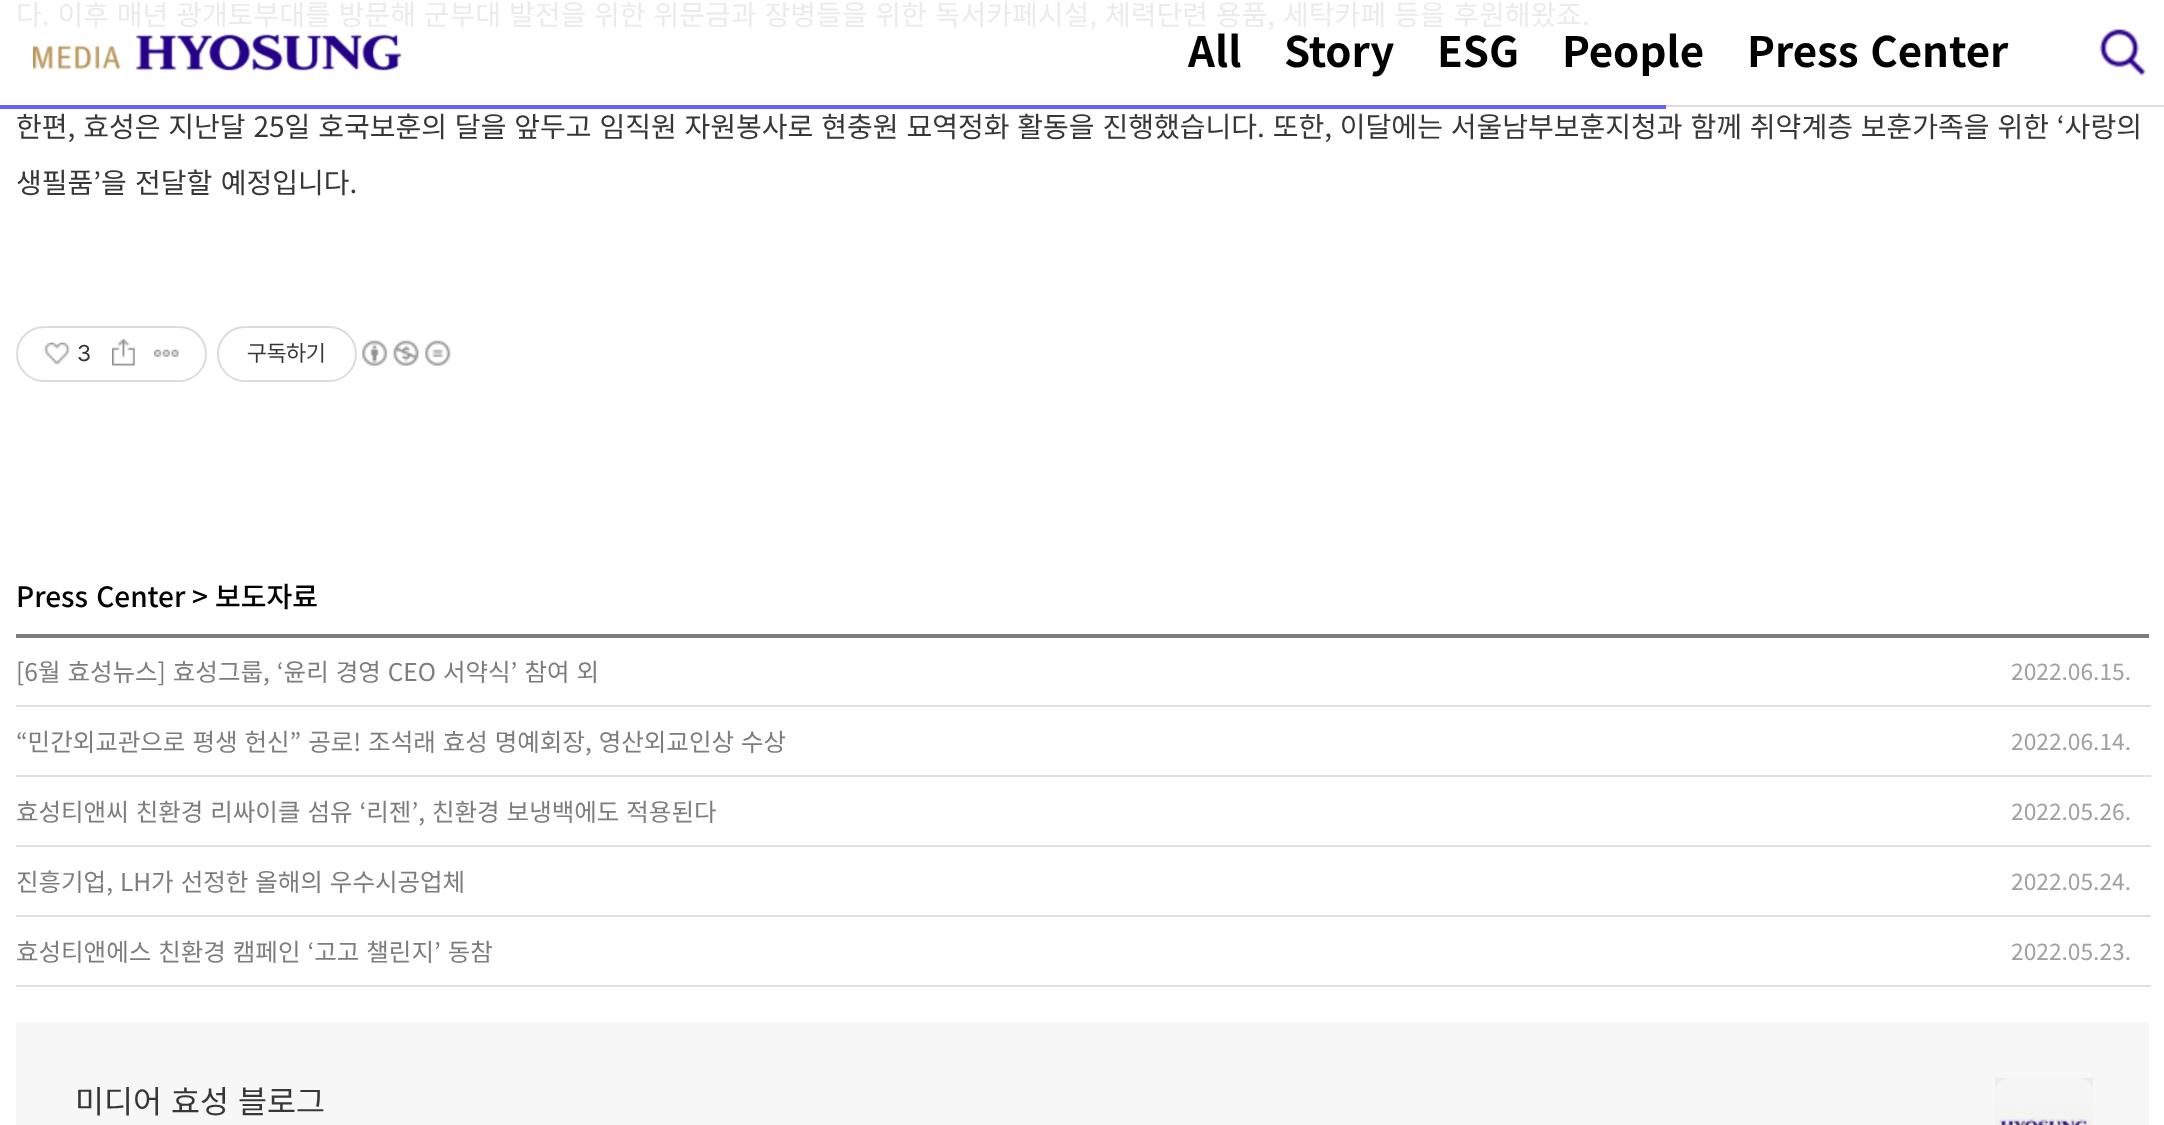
<?xml version="1.0" encoding="UTF-8"?>
<svg xmlns="http://www.w3.org/2000/svg" width="2164" height="1125">
    <rect width="100%" height="100%" fill="#FFFFFF"/>
    <text x="16" y="25" word-spacing="1.6" font-family="Noto Sans KR" font-size="28" fill="#EBEBEB">다. 이후 매년 광개토부대를 방문해 군부대 발전을 위한 위문금과 장병들을 위한 독서카페시설, 체력단련 용품, 세탁카페 등을 후원해왔죠.</text>
    <text x="16" y="137" word-spacing="1.6" font-family="Noto Sans KR" font-size="28" fill="#373737">한편, 효성은 지난달 25일 호국보훈의 달을 앞두고 임직원 자원봉사로 현충원 묘역정화 활동을 진행했습니다. 또한, 이달에는 서울남부보훈지청과 함께 취약계층 보훈가족을 위한 ‘사랑의</text>
    <text x="16" y="193" word-spacing="2" font-family="Noto Sans KR" font-size="28" fill="#373737">생필품’을 전달할 예정입니다.</text>
    <rect x="17" y="327" width="189" height="54" rx="27" fill="none" stroke="#DCDCDC" stroke-width="2"/>
    <image x="43" y="342" width="27" height="23" href="img_01.png"/>
    <text x="77" y="361" font-family="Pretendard" font-size="22.75" fill="#373737">3</text>
    <image x="112" y="339" width="23" height="27" href="img_02.png"/>
    <image x="154" y="349" width="25" height="8" href="img_03.png"/>
    <rect x="218" y="327" width="138" height="54" rx="27" fill="none" stroke="#DCDCDC" stroke-width="2"/>
    <text x="247" y="361" font-family="Pretendard" font-size="22.75" fill="#373737">구독하기</text>
    <image x="361" y="340" width="27" height="26" href="img_04.png"/>
    <image x="393" y="340" width="26" height="26" href="img_05.png"/>
    <image x="424" y="340" width="27" height="26" href="img_06.png"/>
    <rect x="16" y="634" width="2133" height="4" fill="#7D7D7D"/>
    <text x="16" y="607" word-spacing="2" font-family="Noto Sans KR" font-size="28" font-weight="500" fill="#000000">Press Center</text>
    <text x="192" y="607" font-family="Noto Sans KR" font-size="28" font-weight="500" fill="#000000">&gt;</text>
    <text x="215" y="607" font-family="Noto Sans KR" font-size="28" font-weight="500" fill="#000000">보도자료</text>
    <rect x="16" y="705" width="2135" height="2" fill="#E1E1E1"/>
    <text x="16" y="681" word-spacing="1.5" font-family="Noto Sans KR" font-size="24.5" fill="#7D7D7D">[6월 효성뉴스] 효성그룹, ‘윤리 경영 CEO 서약식’ 참여 외</text>
    <text x="2011" y="680" font-family="Noto Sans KR" font-size="22.75" fill="#A0A0A0">2022.06.15.</text>
    <rect x="16" y="775" width="2135" height="2" fill="#E1E1E1"/>
    <text x="16" y="751" word-spacing="1.5" font-family="Noto Sans KR" font-size="24.5" fill="#7D7D7D">“민간외교관으로 평생 헌신” 공로! 조석래 효성 명예회장, 영산외교인상 수상</text>
    <text x="2011" y="750" font-family="Noto Sans KR" font-size="22.75" fill="#A0A0A0">2022.06.14.</text>
    <rect x="16" y="845" width="2135" height="2" fill="#E1E1E1"/>
    <text x="16" y="821" word-spacing="1.5" font-family="Noto Sans KR" font-size="24.5" fill="#7D7D7D">효성티앤씨 친환경 리싸이클 섬유 ‘리젠’, 친환경 보냉백에도 적용된다</text>
    <text x="2011" y="820" font-family="Noto Sans KR" font-size="22.75" fill="#A0A0A0">2022.05.26.</text>
    <rect x="16" y="915" width="2135" height="2" fill="#E1E1E1"/>
    <text x="16" y="891" word-spacing="1.5" font-family="Noto Sans KR" font-size="24.5" fill="#7D7D7D">진흥기업, LH가 선정한 올해의 우수시공업체</text>
    <text x="2011" y="890" font-family="Noto Sans KR" font-size="22.75" fill="#A0A0A0">2022.05.24.</text>
    <rect x="16" y="985" width="2135" height="2" fill="#E1E1E1"/>
    <text x="16" y="961" word-spacing="1.5" font-family="Noto Sans KR" font-size="24.5" fill="#7D7D7D">효성티앤에스 친환경 캠페인 ‘고고 챌린지’ 동참</text>
    <text x="2011" y="960" font-family="Noto Sans KR" font-size="22.75" fill="#A0A0A0">2022.05.23.</text>
    <rect x="16" y="1022" width="2133" height="103" fill="#F7F7F7"/>
    <text x="75" y="1113" word-spacing="2" font-family="Noto Sans KR" font-size="31.5" fill="#373737">미디어 효성 블로그</text>
    <image x="1995" y="1078" width="98" height="47" href="img_07.png"/>
    <rect x="1995" y="1078" width="98" height="47" fill="#000000" fill-opacity="0.04"/>
    <rect x="1666" y="105" width="498" height="2" fill="#DDDDDD"/>
    <image x="33" y="34" width="369" height="37" href="img_08.png"/>
    <text x="1188" y="67" font-family="Noto Sans KR" font-size="42" font-weight="700" fill="#000000">All</text>
    <text x="1284" y="67" font-family="Noto Sans KR" font-size="42" font-weight="700" fill="#000000">Story</text>
    <text x="1437" y="67" font-family="Noto Sans KR" font-size="42" font-weight="700" fill="#000000">ESG</text>
    <text x="1562" y="67" font-family="Noto Sans KR" font-size="42" font-weight="700" fill="#000000">People</text>
    <text x="1747" y="67" word-spacing="2" font-family="Noto Sans KR" font-size="42" font-weight="700" fill="#000000">Press Center</text>
    <image x="2099" y="29" width="47" height="47" href="img_09.png"/>
    <rect x="0" y="105" width="1666" height="4" fill="#6361FF"/>
</svg>
